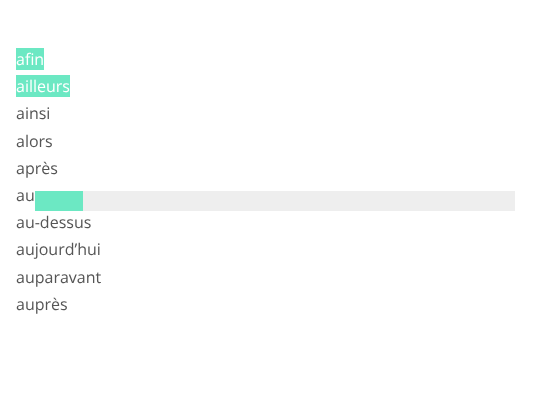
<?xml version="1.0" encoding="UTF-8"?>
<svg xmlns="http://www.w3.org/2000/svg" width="550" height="402">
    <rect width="100%" height="100%" fill="#FFFFFF"/>
    <rect x="16" y="48" width="28" height="22" fill="#6CE8C3"/>
    <text x="16" y="65" font-family="Open Sans" font-size="16" fill="#FFFFFF">afin</text>
    <rect x="16" y="75" width="54" height="22" fill="#6CE8C3"/>
    <text x="16" y="92" font-family="Open Sans" font-size="16" fill="#FFFFFF">ailleurs</text>
    <text font-family="Open Sans" font-size="16" fill="#555555">
        <tspan x="16" y="119">ainsi</tspan>
        <tspan x="16" y="147">alors</tspan>
        <tspan x="16" y="174">après</tspan>
        <tspan x="16" y="201">au</tspan>
        <tspan x="16" y="228">au-dessus</tspan>
        <tspan x="16" y="255">aujourd’hui</tspan>
        <tspan x="16" y="283">auparavant</tspan>
        <tspan x="16" y="310">auprès</tspan>
    </text>
    <rect x="83" y="191" width="432" height="20" fill="#EEEEEE"/>
    <rect x="35" y="191" width="48" height="20" fill="#6CE8C3"/>
</svg>
